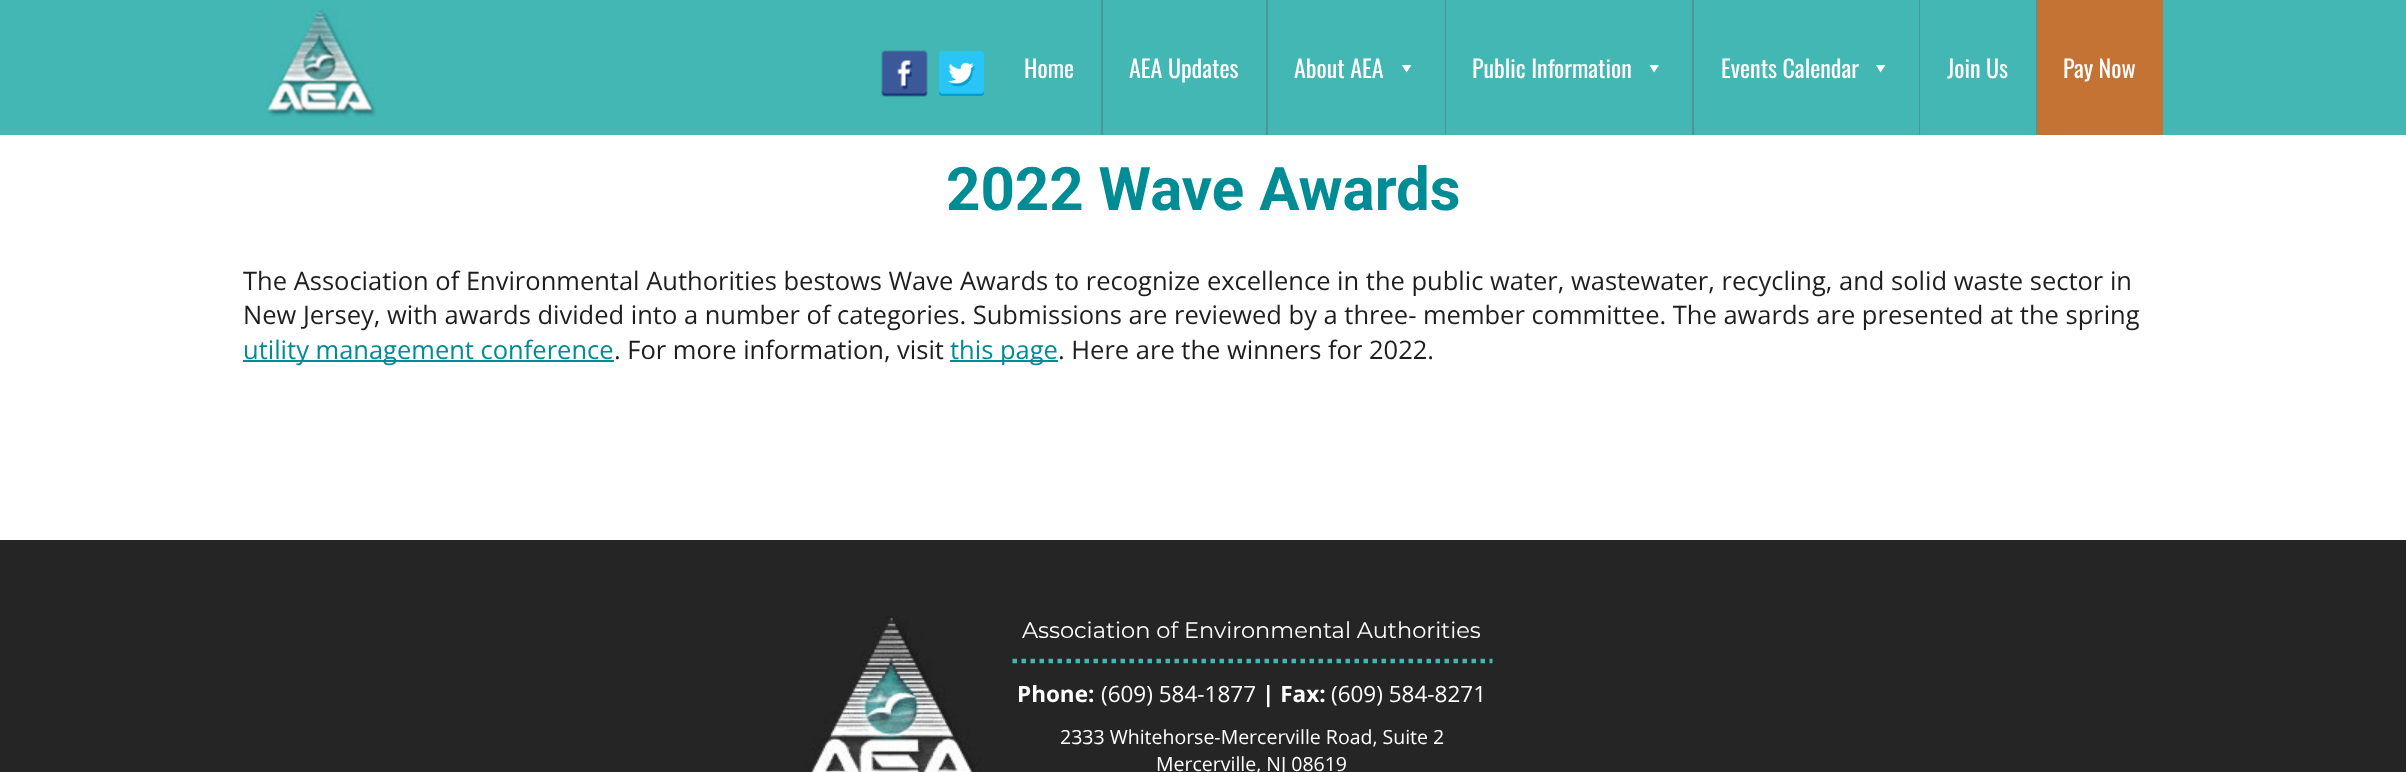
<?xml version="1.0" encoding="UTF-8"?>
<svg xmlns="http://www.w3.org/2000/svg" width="2406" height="772">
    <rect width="100%" height="100%" fill="#FFFFFF"/>
    <rect x="0" y="0" width="2406" height="135" fill="#43B7B4"/>
    <rect x="2036" y="0" width="1" height="135" fill="#479896"/>
    <rect x="1919" y="0" width="1" height="135" fill="#479896"/>
    <rect x="1445" y="0" width="1" height="135" fill="#479896"/>
    <image x="266" y="8" width="110" height="109" href="img_01.png"/>
    <image x="881" y="50" width="47" height="47" href="img_02.png"/>
    <image x="939" y="51" width="45" height="45" href="img_03.png"/>
    <text x="1024" y="78" font-family="Oswald" font-size="24" fill="#FFFFFF">Home</text>
    <rect x="1101" y="0" width="2" height="135" fill="#479896"/>
    <text x="1129" y="78" font-family="Oswald" font-size="24" fill="#FFFFFF">AEA Updates</text>
    <rect x="1266" y="0" width="2" height="135" fill="#479896"/>
    <text x="1294" y="78" font-family="Oswald" font-size="24" fill="#FFFFFF">About AEA</text>
    <path d="M 1411.5 65 L 1406.5 72.5 L 1402 65 Z" fill="#FFFFFF"/>
    <text x="1472" y="78" font-family="Oswald" font-size="24" fill="#FFFFFF">Public Information</text>
    <path d="M 1659 65 L 1654 72.5 L 1649.5 65 Z" fill="#FFFFFF"/>
    <rect x="1692" y="0" width="2" height="135" fill="#479896"/>
    <text x="1721" y="78" font-family="Oswald" font-size="24" fill="#FFFFFF">Events Calendar</text>
    <path d="M 1885.5 65 L 1880.5 72.5 L 1876 65 Z" fill="#FFFFFF"/>
    <text x="1947" y="78" font-family="Oswald" font-size="24" fill="#FFFFFF">Join Us</text>
    <rect x="2037" y="0" width="126" height="135" fill="#C57235"/>
    <text x="2063" y="78" font-family="Oswald" font-size="24" fill="#FFFFFF">Pay Now</text>
    <text x="946" y="210" font-family="Roboto" font-size="60" font-weight="700" fill="#008C95">2022 Wave Awards</text>
    <text font-family="Open Sans" font-size="25.5" fill="#1E1E1E">
        <tspan x="243" y="290">The Association of Environmental Authorities bestows Wave Awards to recognize excellence in the public water, wastewater, recycling, and solid waste sector in</tspan>
        <tspan x="243" y="324">New Jersey, with awards divided into a number of categories. Submissions are reviewed by a three- member committee. The awards are presented at the spring</tspan>
    </text>
    <rect x="243" y="360" width="371" height="2" fill="#008C95"/>
    <text x="243" y="359" font-family="Open Sans" font-size="25.5" fill="#008C95">utility management conference</text>
    <text x="614" y="359" font-family="Open Sans" font-size="25.5" fill="#1E1E1E">. For more information, visit</text>
    <rect x="950" y="360" width="108" height="2" fill="#008C95"/>
    <text x="950" y="359" font-family="Open Sans" font-size="25.5" fill="#008C95">this page</text>
    <text x="1058" y="359" font-family="Open Sans" font-size="25.5" fill="#1E1E1E">. Here are the winners for 2022.</text>
    <rect x="0" y="540" width="2406" height="232" fill="#252525"/>
    <image x="806" y="616" width="175" height="156" href="img_04.png"/>
    <path d="M 1012.5 661 H 1492.5" fill="none" stroke="#43B7B4" stroke-width="4.5" stroke-dasharray="4.5 4.5"/>
    <text x="1022" y="638" font-family="Montserrat" font-size="22.5" fill="#FFFFFF">Association of Environmental Authorities</text>
    <text x="1017" y="702" font-family="Open Sans" font-size="22.5" font-weight="700" fill="#FFFFFF">Phone:</text>
    <text x="1101" y="702" font-family="Open Sans" font-size="22.5" fill="#FFFFFF">(609) 584-1877</text>
    <text x="1262" y="702" font-family="Open Sans" font-size="22.5" font-weight="700" fill="#FFFFFF">| Fax:</text>
    <text x="1331" y="702" font-family="Open Sans" font-size="22.5" fill="#FFFFFF">(609) 584-8271</text>
    <text x="1060" y="744" font-family="Open Sans" font-size="19.5" fill="#FFFFFF">2333 Whitehorse-Mercerville Road, Suite 2</text>
    <text x="1156" y="771" font-family="Open Sans" font-size="19.5" fill="#FFFFFF">Mercerville, NJ 08619</text>
</svg>
